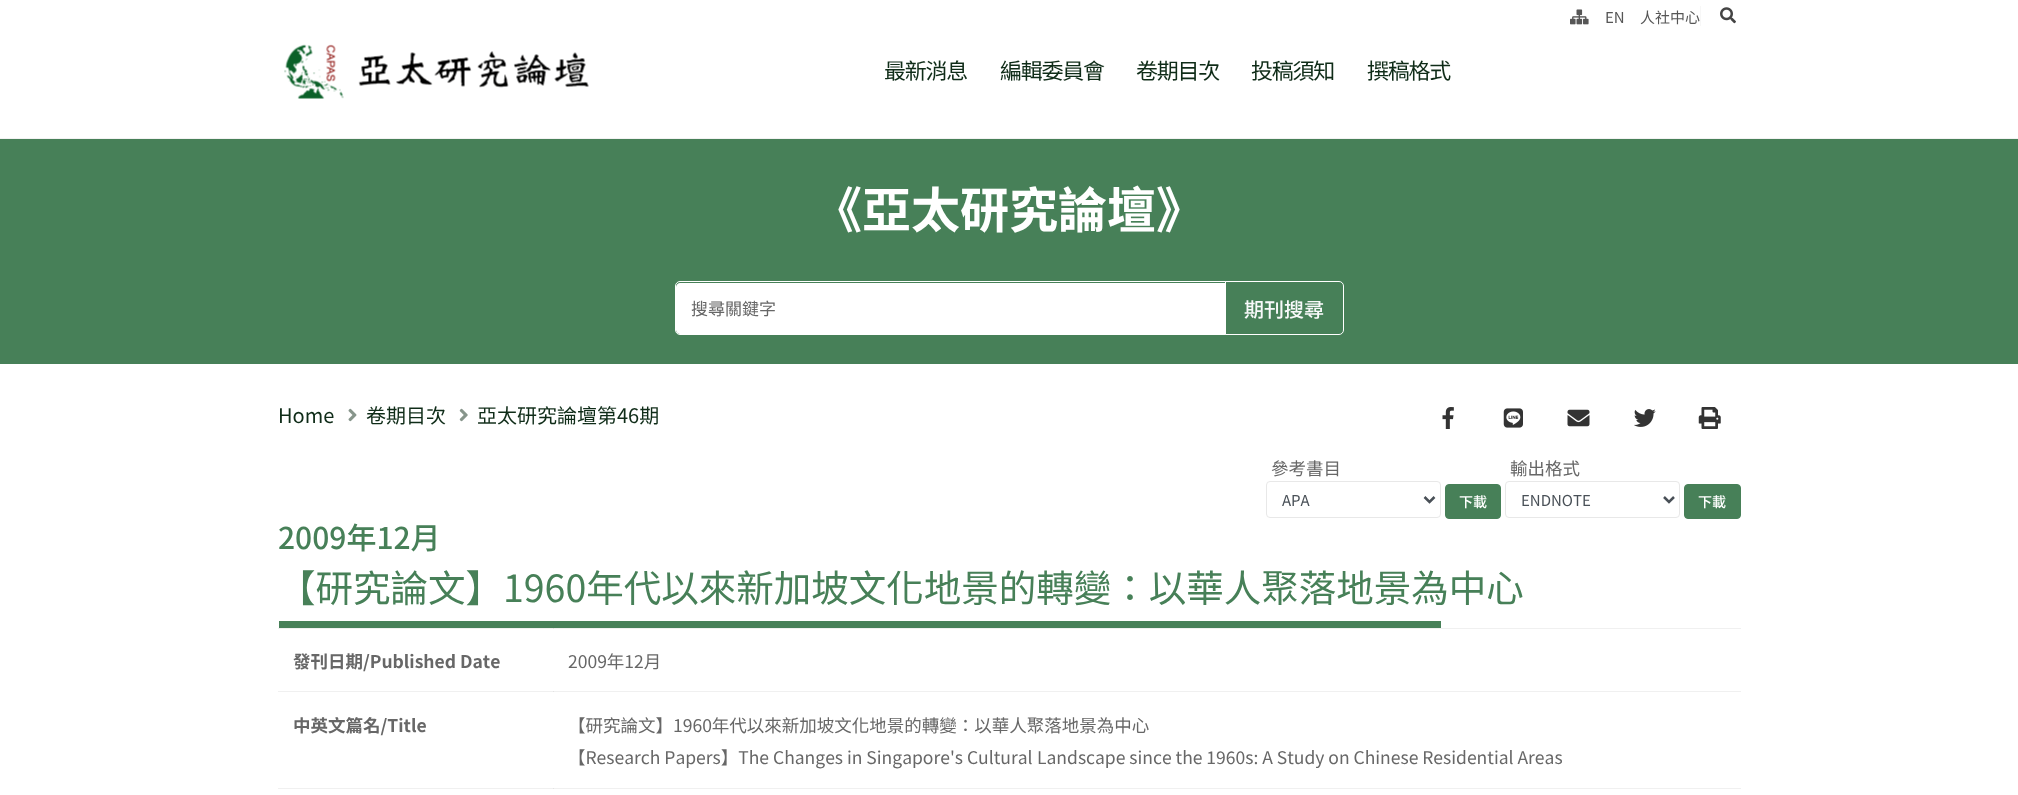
<?xml version="1.0" encoding="UTF-8"?>
<svg xmlns="http://www.w3.org/2000/svg" width="2018" height="795">
    <style>*{font-kerning:none!important;font-variant-ligatures:none!important}</style>
    <rect width="100%" height="100%" fill="#FFFFFF"/>
    <rect x="278" y="628" width="1463" height="1" fill="#F0F0F0"/>
    <rect x="278" y="691" width="1463" height="1" fill="#F0F0F0"/>
    <rect x="278" y="788" width="1463" height="1" fill="#F0F0F0"/>
    <rect x="0" y="138" width="2018" height="1" fill="#F2F2F2"/>
    <image x="284" y="44" width="305" height="55" href="img_01.png"/>
    <image x="1570" y="9" width="19" height="16" href="img_02.png"/>
    <text x="1605" y="23" font-family="Noto Sans TC" font-size="15" fill="#565656">EN</text>
    <text x="1640" y="23" font-family="Noto Sans TC" font-size="15" fill="#565656">人社中心</text>
    <rect x="1700" y="6" width="1" height="20" fill="#F7F7F7"/>
    <image x="1720" y="7" width="16" height="17" href="img_03.png"/>
    <text x="884" y="79" font-family="Noto Sans TC" font-size="22" letter-spacing="-1.25" fill="#0F2C18">最新消息</text>
    <text x="1000" y="79" font-family="Noto Sans TC" font-size="22" letter-spacing="-1.25" fill="#0F2C18">編輯委員會</text>
    <text x="1136" y="79" font-family="Noto Sans TC" font-size="22" letter-spacing="-1.25" fill="#0F2C18">卷期目次</text>
    <text x="1251" y="79" font-family="Noto Sans TC" font-size="22" letter-spacing="-1.25" fill="#0F2C18">投稿須知</text>
    <text x="1367" y="79" font-family="Noto Sans TC" font-size="22" letter-spacing="-1.25" fill="#0F2C18">撰稿格式</text>
    <rect x="0" y="139" width="2018" height="225" fill="#478058"/>
    <text x="813" y="228" font-family="Noto Sans TC" font-size="49" font-weight="700" fill="#FFFFFF">《亞太研究論壇》</text>
    <path d="M 680 283 H 1225 V 334 H 680 C 678 334 676 332 676 330 V 287 C 676 285 678 283 680 283 Z" fill="#FFFFFF"/>
    <path d="M 680 281.5 H 1225.5 V 334.5 H 680 C 677.5 334.5 675.5 332.5 675.5 330 V 286 C 675.5 283.5 677.5 281.5 680 281.5 Z" fill="none" stroke="#FFFFFF"/>
    <text x="691" y="315" font-family="Noto Sans TC" font-size="17" fill="#676767">搜尋關鍵字</text>
    <path d="M 1225.5 281.5 H 1339 C 1341.5 281.5 1343.5 283.5 1343.5 286 V 330 C 1343.5 332.5 1341.5 334.5 1339 334.5 H 1225.5 Z" fill="none" stroke="#FFFFFF"/>
    <text x="1244" y="317" font-family="Noto Sans TC" font-size="20" font-weight="500" fill="#F8F9FA">期刊搜尋</text>
    <text x="278" y="423" font-family="Noto Sans TC" font-size="20" fill="#0F2C18">Home</text>
    <image x="348" y="408" width="9" height="14" href="img_04.png"/>
    <text x="366" y="423" font-family="Noto Sans TC" font-size="20" fill="#0F2C18">卷期目次</text>
    <image x="459" y="408" width="9" height="14" href="img_05.png"/>
    <text x="477" y="423" font-family="Noto Sans TC" font-size="20" fill="#0F2C18">亞太研究論壇第46期</text>
    <image x="1442" y="407" width="12" height="22" href="img_06.png"/>
    <image x="1503" y="408" width="20" height="20" href="img_07.png"/>
    <image x="1567" y="409" width="23" height="18" href="img_08.png"/>
    <image x="1634" y="409" width="22" height="18" href="img_09.png"/>
    <image x="1698" y="407" width="23" height="22" href="img_10.png"/>
    <text x="1271" y="475" font-family="Noto Sans TC" font-size="17.5" fill="#676767">參考書目</text>
    <rect x="1266.5" y="481.5" width="174" height="36" rx="3.5" fill="none" stroke="#E8E8E8"/>
    <path d="M 1424.5 497 L 1429.5 502 L 1434.5 497" fill="none" stroke="#495057" stroke-width="2.5"/>
    <text x="1282" y="506" font-family="Noto Sans TC" font-size="15" fill="#495057">APA</text>
    <rect x="1445.5" y="484.5" width="55" height="34" rx="3.5" fill="#478058" stroke="#478058"/>
    <text x="1459" y="507" font-family="Noto Sans TC" font-size="14" font-weight="500" fill="#FFFFFF">下載</text>
    <text x="1510" y="475" font-family="Noto Sans TC" font-size="17.5" fill="#676767">輸出格式</text>
    <rect x="1505.5" y="481.5" width="174" height="36" rx="3.5" fill="none" stroke="#E8E8E8"/>
    <path d="M 1664 497 L 1669 502 L 1674 497" fill="none" stroke="#495057" stroke-width="2.5"/>
    <text x="1521" y="506" font-family="Noto Sans TC" font-size="15" fill="#495057">ENDNOTE</text>
    <rect x="1684.5" y="484.5" width="56" height="34" rx="3.5" fill="#478058" stroke="#478058"/>
    <text x="1698" y="507" font-family="Noto Sans TC" font-size="14" font-weight="500" fill="#FFFFFF">下載</text>
    <text x="278" y="549" font-family="Noto Sans TC" font-size="30" font-weight="500" fill="#478058">2009年12月</text>
    <text x="278" y="602" font-family="Noto Sans TC" font-size="37.5" fill="#478058">【研究論文】1960年代以來新加坡文化地景的轉變：以華人聚落地景為中心</text>
    <rect x="279" y="621" width="1162" height="7" fill="#478058"/>
    <text x="293" y="668" font-family="Noto Sans TC" font-size="17.5" font-weight="700" fill="#676767">發刊日期/Published Date</text>
    <rect x="553" y="628" width="1" height="1" fill="#E2E2E2"/>
    <text x="568" y="668" font-family="Noto Sans TC" font-size="17.5" fill="#676767">2009年12月</text>
    <text x="293" y="732" font-family="Noto Sans TC" font-size="17.5" font-weight="700" fill="#676767">中英文篇名/Title</text>
    <rect x="553" y="691" width="1" height="1" fill="#E2E2E2"/>
    <text font-family="Noto Sans TC" font-size="17.5" fill="#676767">
        <tspan x="568" y="732">【研究論文】1960年代以來新加坡文化地景的轉變：以華人聚落地景為中心</tspan>
        <tspan x="568" y="764">【Research Papers】The Changes in Singapore's Cultural</tspan>
    </text>
    <text x="1037" y="764" font-family="Noto Sans TC" font-size="17.5" fill="#676767">Landscape since the 1960s: A Study on Chinese Residential Areas</text>
    <rect x="553" y="788" width="1" height="1" fill="#E2E2E2"/>
</svg>
